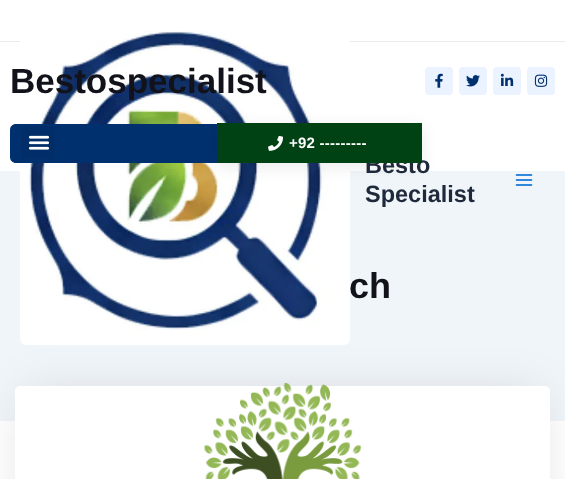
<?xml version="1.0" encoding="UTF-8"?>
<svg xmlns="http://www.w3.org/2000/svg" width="565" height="479">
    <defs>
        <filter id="blur1" x="-50%" y="-200%" width="200%" height="500%"><feGaussianBlur stdDeviation="25"/></filter>
        <filter id="blur2" x="-50%" y="-200%" width="200%" height="500%"><feGaussianBlur stdDeviation="8"/></filter>
    </defs>
    <rect width="100%" height="100%" fill="#FFFFFF"/>
    <rect x="0" y="41" width="565" height="1" fill="#EAEAEA"/>
    <rect x="0" y="171" width="565" height="250" fill="#F0F5FA"/>
    <rect x="25" y="396" width="515" height="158" fill="#000000" fill-opacity="0.13" filter="url(#blur1)"/>
    <image x="20" y="15" width="330" height="330" href="img_08.png"/>
    <text x="10" y="93" font-family="Liberation Sans" font-size="35" font-weight="700" fill="#11121A">Bestospecialist</text>
    <rect x="425" y="67" width="28" height="28" rx="4" fill="#EAF3FF"/>
    <image x="435" y="73" width="8" height="15" href="img_01.png"/>
    <rect x="459" y="67" width="28" height="28" rx="4" fill="#EAF3FF"/>
    <image x="466" y="75" width="14" height="12" href="img_02.png"/>
    <rect x="493" y="67" width="28" height="28" rx="4" fill="#EAF3FF"/>
    <image x="500" y="73" width="14" height="13" href="img_03.png"/>
    <rect x="527" y="67" width="28" height="28" rx="4" fill="#EAF3FF"/>
    <image x="534" y="74" width="14" height="13" href="img_04.png"/>
    <path d="M 16 124 H 217 V 163 H 16 C 12.5 163 10 160.5 10 157 V 130 C 10 126.5 12.5 124 16 124 Z" fill="#01306E"/>
    <rect x="22" y="126" width="33" height="33" rx="3" fill="#012E69"/>
    <image x="28" y="135" width="22" height="15" href="img_05.png"/>
    <rect x="217" y="127" width="205" height="40" fill="#000000" fill-opacity="0.08" filter="url(#blur2)"/>
    <text x="365" y="173" font-family="Liberation Sans" font-size="23.5" font-weight="700" fill="#1E293B">Besto</text>
    <rect x="217" y="123" width="205" height="40" fill="#004213"/>
    <image x="268" y="135" width="15" height="16" href="img_06.png"/>
    <text x="289" y="148" font-family="Liberation Sans" font-size="15" font-weight="700" letter-spacing="0.25" fill="#FFFFFF">+92 ---------</text>
    <text x="349" y="298" font-family="Liberation Sans" font-size="36" font-weight="700" fill="#11121A">ch</text>
    <rect x="15" y="386" width="535" height="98" rx="5" fill="#FFFFFF"/>
    <image x="204" y="382" width="158" height="97" href="img_07.png"/>
    <text x="365" y="202" font-family="Liberation Sans" font-size="23.5" font-weight="700" fill="#1E293B">Specialist</text>
    <image x="515" y="174" width="18" height="12" href="img_09.png"/>
</svg>
